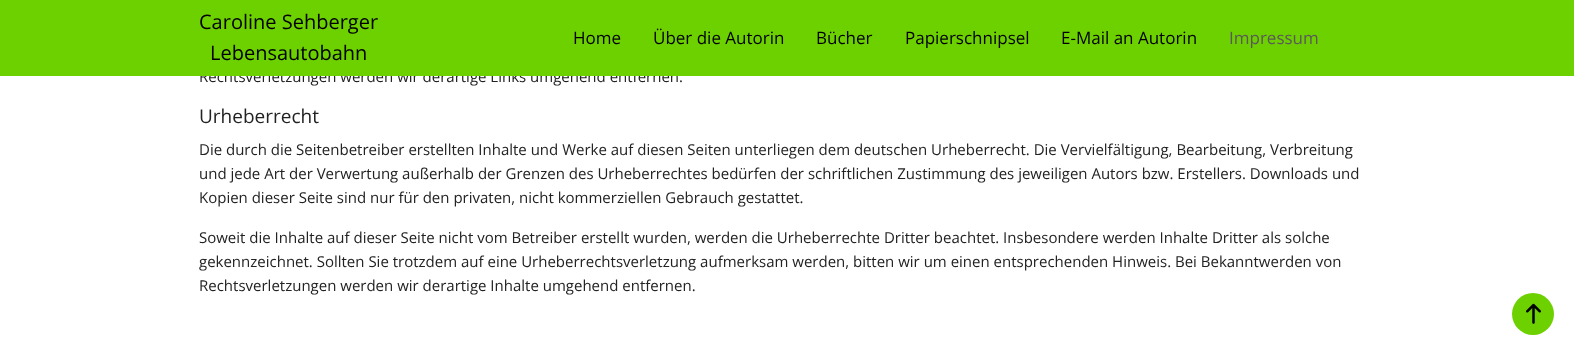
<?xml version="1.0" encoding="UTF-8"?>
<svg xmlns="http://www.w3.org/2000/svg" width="1574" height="355">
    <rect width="100%" height="100%" fill="#FFFFFF"/>
    <text x="199" y="82" font-family="Open Sans" font-size="15" fill="#222222">Rechtsverletzungen werden wir derartige Links umgehend entfernen.</text>
    <rect x="0" y="0" width="1574" height="76" fill="#6DD100"/>
    <text x="199" y="29" font-family="Open Sans" font-size="20" fill="#000000">Caroline Sehberger</text>
    <text x="210" y="60" font-family="Open Sans" font-size="20" fill="#000000">Lebensautobahn</text>
    <text x="573" y="44" font-family="Open Sans" font-size="17" fill="#000000">Home</text>
    <text x="653" y="44" font-family="Open Sans" font-size="17" fill="#000000">Über die Autorin</text>
    <text x="816" y="44" font-family="Open Sans" font-size="17" fill="#000000">Bücher</text>
    <text x="905" y="44" font-family="Open Sans" font-size="17" fill="#000000">Papierschnipsel</text>
    <text x="1061" y="44" font-family="Open Sans" font-size="17" fill="#000000">E-Mail an Autorin</text>
    <text x="1229" y="44" font-family="Open Sans" font-size="17" fill="#5A5A5A">Impressum</text>
    <text x="199" y="123" font-family="Open Sans" font-size="19" fill="#222222">Urheberrecht</text>
    <text font-family="Open Sans" font-size="15" fill="#222222">
        <tspan x="199" y="155">Die durch die Seitenbetreiber erstellten Inhalte und Werke auf diesen Seiten unterliegen dem deutschen Urheberrecht. Die Vervielfältigung, Bearbeitung, Verbreitung</tspan>
        <tspan x="199" y="179">und jede Art der Verwertung außerhalb der Grenzen des Urheberrechtes bedürfen der schriftlichen Zustimmung des jeweiligen Autors bzw. Erstellers. Downloads und</tspan>
        <tspan x="199" y="203">Kopien dieser Seite sind nur für den privaten, nicht kommerziellen Gebrauch gestattet.</tspan>
    </text>
    <text font-family="Open Sans" font-size="15" fill="#222222">
        <tspan x="199" y="243">Soweit die Inhalte auf dieser Seite nicht vom Betreiber erstellt wurden, werden die Urheberrechte Dritter beachtet. Insbesondere werden Inhalte Dritter als solche</tspan>
        <tspan x="199" y="267">gekennzeichnet. Sollten Sie trotzdem auf eine Urheberrechtsverletzung aufmerksam werden, bitten wir um einen entsprechenden Hinweis. Bei Bekanntwerden von</tspan>
        <tspan x="199" y="291">Rechtsverletzungen werden wir derartige Inhalte umgehend entfernen.</tspan>
    </text>
    <circle cx="1533" cy="314" r="21" fill="#6DD100"/>
    <image x="1526" y="303" width="15" height="21" href="img_01.png"/>
</svg>
